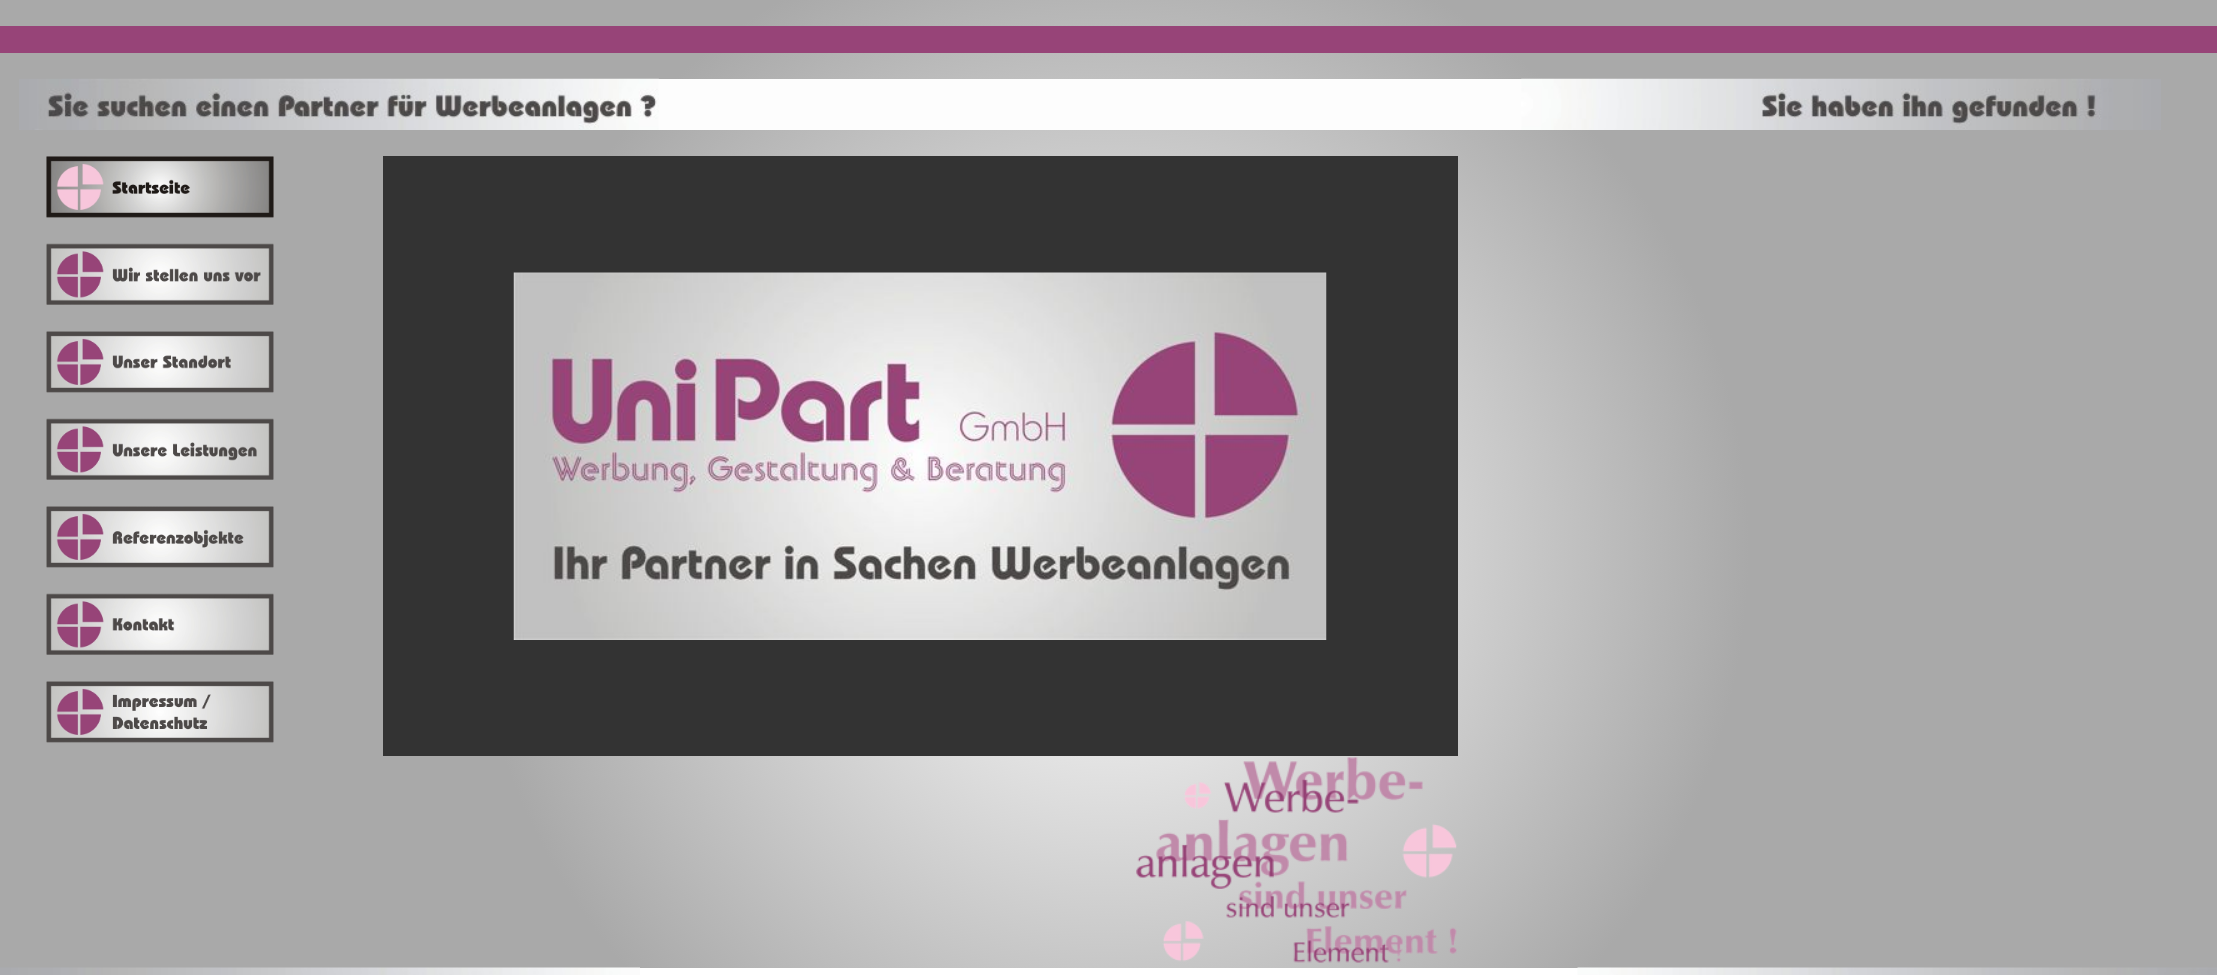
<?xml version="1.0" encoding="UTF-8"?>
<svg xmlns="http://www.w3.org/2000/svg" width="2217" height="975">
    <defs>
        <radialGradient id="g1" gradientUnits="userSpaceOnUse" cx="1109" cy="549" r="640"><stop offset="0" stop-color="#FFFFFF"/><stop offset="1" stop-color="#A9A9A9"/></radialGradient>
    </defs>
    <rect width="100%" height="100%" fill="#FFFFFF"/>
    <rect x="0" y="0" width="2217" height="968" fill="url(#g1)"/>
    <rect x="0" y="26" width="2217" height="27" fill="#974478"/>
    <rect x="658" y="79" width="864" height="51" fill="#FDFDFD"/>
    <image x="19" y="78" width="640" height="52" href="img_01.png"/>
    <image x="1521" y="78" width="640" height="52" href="img_02.png"/>
    <image x="46" y="156" width="228" height="62" href="img_03.png"/>
    <image x="46" y="243" width="228" height="62" href="img_04.png"/>
    <image x="46" y="331" width="228" height="62" href="img_05.png"/>
    <image x="46" y="418" width="228" height="62" href="img_06.png"/>
    <image x="46" y="506" width="228" height="62" href="img_07.png"/>
    <image x="46" y="593" width="228" height="62" href="img_08.png"/>
    <image x="46" y="681" width="228" height="62" href="img_09.png"/>
    <image x="0" y="967" width="640" height="8" href="img_10.png"/>
    <image x="1577" y="967" width="640" height="8" href="img_11.png"/>
    <rect x="383" y="156" width="1075" height="600" fill="#333333"/>
    <image x="513" y="272" width="814" height="368" href="img_12.png"/>
    <image x="1136" y="757" width="321" height="206" href="img_13.png"/>
</svg>
